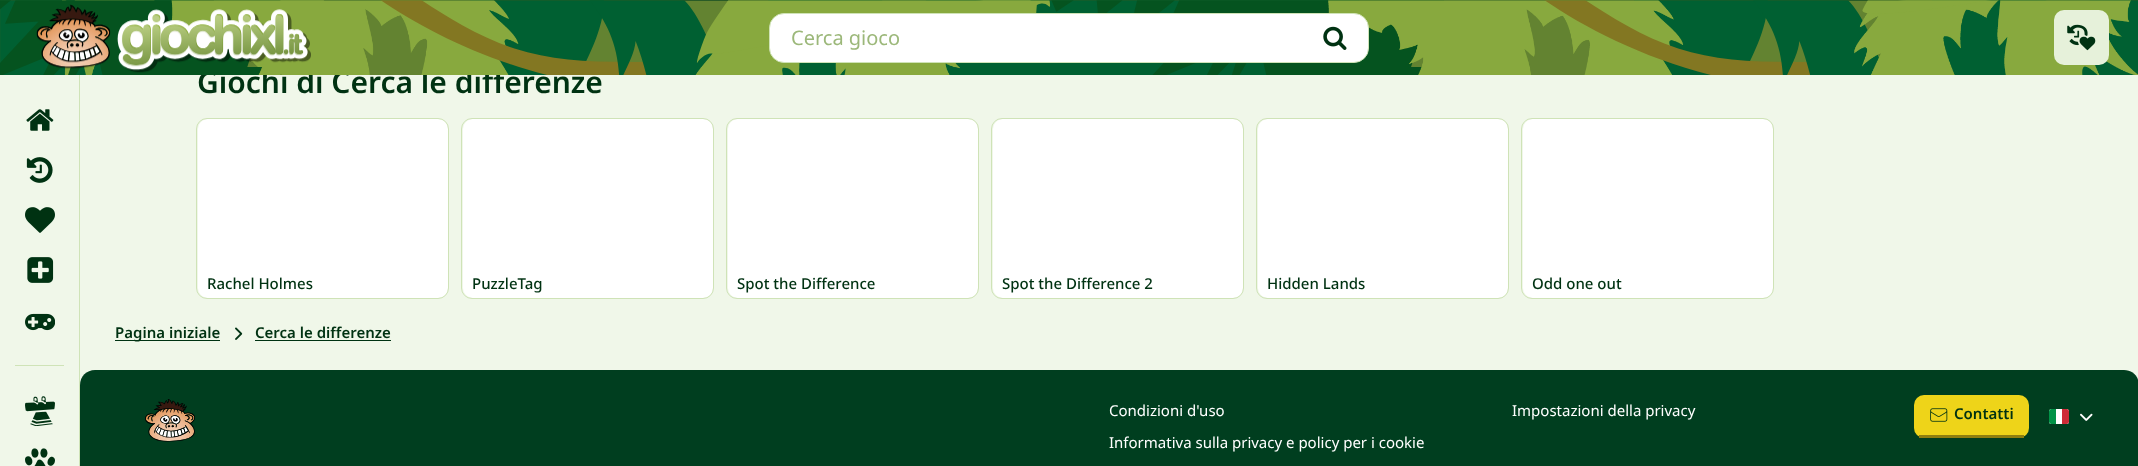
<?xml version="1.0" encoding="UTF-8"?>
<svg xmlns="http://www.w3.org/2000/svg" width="2138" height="466">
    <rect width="100%" height="100%" fill="#F0F7E9"/>
    <rect x="0" y="0" width="2138" height="63" fill="#003E1F"/>
    <text x="197" y="93" font-family="Noto Sans" font-size="30" font-weight="600" fill="#003212">Giochi di Cerca le differenze</text>
    <image x="0" y="0" width="2138" height="75" href="img_01.png"/>
    <image x="36" y="4" width="275" height="69" href="img_02.png"/>
    <rect x="769.5" y="13.5" width="599" height="49" rx="14.5" fill="#FFFFFF" stroke="#CFE3B7"/>
    <text x="791" y="45" font-family="Noto Sans" font-size="20" fill="#9CB87A">Cerca gioco</text>
    <image x="1323" y="26" width="24" height="24" href="img_03.png"/>
    <rect x="2054" y="10" width="55" height="55" rx="10" fill="#E6F1DA"/>
    <image x="2067" y="24" width="29" height="27" href="img_04.png"/>
    <rect x="79" y="75" width="1" height="391" fill="#CFE3B7"/>
    <rect x="15" y="365" width="49" height="1" fill="#CFE3B7"/>
    <image x="26" y="109" width="28" height="22" href="img_05.png"/>
    <image x="26" y="157" width="27" height="26" href="img_06.png"/>
    <image x="25" y="207" width="30" height="26" href="img_07.png"/>
    <image x="27" y="257" width="27" height="26" href="img_08.png"/>
    <image x="25" y="313" width="30" height="18" href="img_09.png"/>
    <image x="25" y="396" width="30" height="30" href="img_10.png"/>
    <image x="25" y="448" width="30" height="18" href="img_11.png"/>
    <rect x="198" y="119" width="250" height="179" rx="10" fill="#FFFFFF"/>
    <rect x="196.5" y="118.5" width="252" height="180" rx="10.5" fill="none" stroke="#CFE3B7"/>
    <text x="207" y="289" font-family="Noto Sans" font-size="15" font-weight="500" fill="#003212">Rachel Holmes</text>
    <rect x="463" y="119" width="250" height="179" rx="10" fill="#FFFFFF"/>
    <rect x="461.5" y="118.5" width="252" height="180" rx="10.5" fill="none" stroke="#CFE3B7"/>
    <text x="472" y="289" font-family="Noto Sans" font-size="15" font-weight="500" fill="#003212">PuzzleTag</text>
    <rect x="728" y="119" width="250" height="179" rx="10" fill="#FFFFFF"/>
    <rect x="726.5" y="118.5" width="252" height="180" rx="10.5" fill="none" stroke="#CFE3B7"/>
    <text x="737" y="289" font-family="Noto Sans" font-size="15" font-weight="500" fill="#003212">Spot the Difference</text>
    <rect x="993" y="119" width="250" height="179" rx="10" fill="#FFFFFF"/>
    <rect x="991.5" y="118.5" width="252" height="180" rx="10.5" fill="none" stroke="#CFE3B7"/>
    <text x="1002" y="289" font-family="Noto Sans" font-size="15" font-weight="500" fill="#003212">Spot the Difference 2</text>
    <rect x="1258" y="119" width="250" height="179" rx="10" fill="#FFFFFF"/>
    <rect x="1256.5" y="118.5" width="252" height="180" rx="10.5" fill="none" stroke="#CFE3B7"/>
    <text x="1267" y="289" font-family="Noto Sans" font-size="15" font-weight="500" fill="#003212">Hidden Lands</text>
    <rect x="1523" y="119" width="250" height="179" rx="10" fill="#FFFFFF"/>
    <rect x="1521.5" y="118.5" width="252" height="180" rx="10.5" fill="none" stroke="#CFE3B7"/>
    <text x="1532" y="289" font-family="Noto Sans" font-size="15" font-weight="500" fill="#003212">Odd one out</text>
    <rect x="115" y="340" width="105" height="1" fill="#003212"/>
    <text x="115" y="338" font-family="Noto Sans" font-size="15" font-weight="600" fill="#003212">Pagina iniziale</text>
    <image x="235" y="327" width="8" height="13" href="img_12.png"/>
    <text x="255" y="338" font-family="Noto Sans" font-size="15" font-weight="600" fill="#003212">Cerca le differenze</text>
    <rect x="255" y="340" width="136" height="1" fill="#003212"/>
    <path d="M 95 370 H 2124 C 2132.5 370 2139 376.5 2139 385 V 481 H 80 V 385 C 80 376.5 86.5 370 95 370 Z" fill="#003E1F"/>
    <image x="145" y="399" width="50" height="43" href="img_13.png"/>
    <text x="1109" y="416" font-family="Noto Sans" font-size="15" fill="#FFFFFF">Condizioni d'uso</text>
    <text x="1512" y="416" font-family="Noto Sans" font-size="15" fill="#FFFFFF">Impostazioni della privacy</text>
    <text x="1109" y="448" font-family="Noto Sans" font-size="15" fill="#FFFFFF">Informativa sulla privacy e policy per i cookie</text>
    <rect x="1914" y="395" width="115" height="43" rx="10" fill="#EED419"/>
    <rect x="1919" y="435" width="105" height="3" fill="#8F7F0F"/>
    <image x="1930" y="408" width="18" height="14" href="img_14.png"/>
    <text x="1954" y="419" font-family="Noto Sans" font-size="15" font-weight="600" fill="#003212">Contatti</text>
    <rect x="2049" y="409" width="20" height="15" rx="2.5" fill="#FFFFFF"/>
    <path d="M 2051.5 409 H 2056 V 424 H 2051.5 C 2050 424 2049 423 2049 421.5 V 411.5 C 2049 410 2050 409 2051.5 409 Z" fill="#009246"/>
    <path d="M 2062 409 H 2066.5 C 2068 409 2069 410 2069 411.5 V 421.5 C 2069 423 2068 424 2066.5 424 H 2062 Z" fill="#CE2B37"/>
    <image x="2080" y="413" width="13" height="8" href="img_15.png"/>
</svg>
